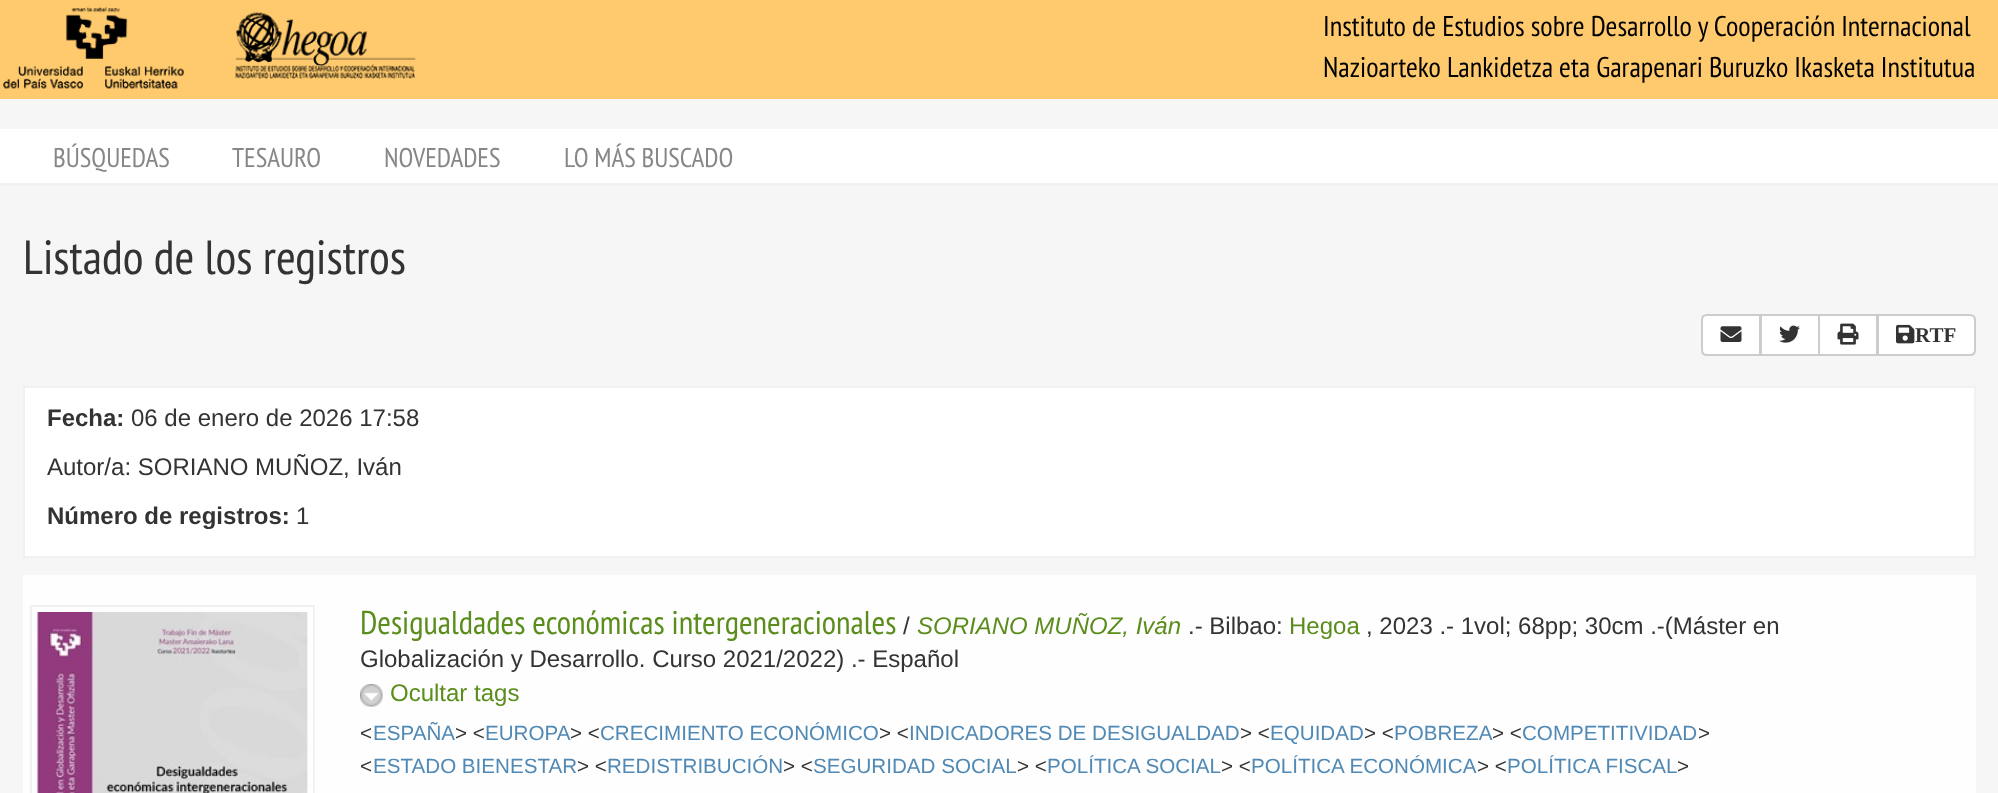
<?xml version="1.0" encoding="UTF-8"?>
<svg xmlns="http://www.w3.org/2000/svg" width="1998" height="793">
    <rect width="100%" height="100%" fill="#F6F6F6"/>
    <rect x="0" y="0" width="1998" height="99" fill="#FFCA6D"/>
    <image x="3" y="7" width="413" height="82" href="img_01.png"/>
    <text font-family="PT Sans Narrow" font-size="28.5" fill="#000000">
        <tspan x="1323" y="36">Instituto de Estudios sobre Desarrollo y Cooperación Internacional</tspan>
        <tspan x="1323" y="77">Nazioarteko Lankidetza eta Garapenari Buruzko Ikasketa Institutua</tspan>
    </text>
    <rect x="0" y="129" width="1998" height="54" fill="#FFFFFF"/>
    <rect x="0" y="183" width="1998" height="3" fill="#F1F1F1"/>
    <text x="53" y="167" font-family="PT Sans Narrow" font-size="27" fill="#878787">BÚSQUEDAS</text>
    <text x="232" y="167" font-family="PT Sans Narrow" font-size="27" fill="#878787">TESAURO</text>
    <text x="384" y="167" font-family="PT Sans Narrow" font-size="27" fill="#878787">NOVEDADES</text>
    <text x="564" y="167" font-family="PT Sans Narrow" font-size="27" fill="#878787">LO MÁS BUSCADO</text>
    <text x="23" y="274" font-family="PT Sans Narrow" font-size="48" fill="#333333">Listado de los registros</text>
    <path d="M 1707 315 H 1760 V 355 H 1707 C 1704 355 1702 353 1702 350 V 320 C 1702 317 1704 315 1707 315 Z" fill="#FFFFFF" stroke="#CCCCCC" stroke-width="2"/>
    <image x="1720" y="326" width="22" height="16" href="img_02.png"/>
    <rect x="1761" y="315" width="58" height="40" fill="#FFFFFF" stroke="#CCCCCC" stroke-width="2"/>
    <image x="1779" y="325" width="21" height="18" href="img_03.png"/>
    <rect x="1819" y="315" width="58" height="40" fill="#FFFFFF" stroke="#CCCCCC" stroke-width="2"/>
    <image x="1837" y="323" width="22" height="22" href="img_04.png"/>
    <path d="M 1878 315 H 1970 C 1973 315 1975 317 1975 320 V 350 C 1975 353 1973 355 1970 355 H 1878 Z" fill="#FFFFFF" stroke="#CCCCCC" stroke-width="2"/>
    <image x="1896" y="324" width="19" height="20" href="img_05.png"/>
    <text x="1915" y="342" font-family="Liberation Serif" font-size="21" font-weight="700" fill="#333333">RTF</text>
    <rect x="24" y="387" width="1951" height="170" fill="#FFFFFF" stroke="#F1F1F1" stroke-width="2"/>
    <text x="47" y="426" font-family="Liberation Sans" font-size="24" font-weight="700" fill="#333333">Fecha:</text>
    <text x="131" y="426" font-family="Liberation Sans" font-size="24" fill="#333333">06 de enero de 2026 17:58</text>
    <text x="47" y="475" font-family="Liberation Sans" font-size="24" fill="#333333">Autor/a: SORIANO MUÑOZ, Iván</text>
    <text x="47" y="524" font-family="Liberation Sans" font-size="24" font-weight="700" fill="#333333">Número de registros:</text>
    <text x="296" y="524" font-family="Liberation Sans" font-size="24" fill="#333333">1</text>
    <rect x="23" y="575" width="1953" height="218" fill="#FEFEFE"/>
    <rect x="31" y="606" width="283" height="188" fill="none" stroke="#F1F1F1" stroke-width="2"/>
    <image x="37" y="612" width="271" height="181" href="img_06.png"/>
    <text x="360" y="634" font-family="PT Sans Narrow" font-size="33" fill="#5A8D1B">Desigualdades económicas intergeneracionales</text>
    <text x="903" y="634" font-family="Liberation Sans" font-size="24" fill="#333333">/</text>
    <text x="917" y="634" font-family="Liberation Sans" font-size="24" font-style="italic" fill="#5A8D1B">SORIANO MUÑOZ, Iván</text>
    <text x="1188" y="634" font-family="Liberation Sans" font-size="24" fill="#333333">.- Bilbao:</text>
    <text x="1289" y="634" font-family="Liberation Sans" font-size="24" fill="#5A8D1B">Hegoa</text>
    <text x="1366" y="634" font-family="Liberation Sans" font-size="24" fill="#333333">, 2023 .- 1vol; 68pp; 30cm .-(Máster en</text>
    <text x="360" y="667" font-family="Liberation Sans" font-size="24" fill="#333333">Globalización y Desarrollo. Curso 2021/2022) .- Español</text>
    <image x="360" y="684" width="23" height="23" href="img_07.png"/>
    <text x="390" y="701" font-family="Liberation Sans" font-size="24" fill="#5A8D1B">Ocultar tags</text>
    <text x="360" y="740" font-family="Liberation Sans" font-size="20.6" fill="#333333">&lt;</text>
    <text x="373" y="740" font-family="Liberation Sans" font-size="20.6" fill="#5189B5">ESPAÑA</text>
    <text x="455" y="740" font-family="Liberation Sans" font-size="20.6" fill="#333333">&gt; &lt;</text>
    <text x="485" y="740" font-family="Liberation Sans" font-size="20.6" fill="#5189B5">EUROPA</text>
    <text x="570" y="740" font-family="Liberation Sans" font-size="20.6" fill="#333333">&gt; &lt;</text>
    <text x="600" y="740" font-family="Liberation Sans" font-size="20.6" fill="#5189B5">CRECIMIENTO ECONÓMICO</text>
    <text x="879" y="740" font-family="Liberation Sans" font-size="20.6" fill="#333333">&gt; &lt;</text>
    <text x="909" y="740" font-family="Liberation Sans" font-size="20.6" fill="#5189B5">INDICADORES DE DESIGUALDAD</text>
    <text x="1240" y="740" font-family="Liberation Sans" font-size="20.6" fill="#333333">&gt; &lt;</text>
    <text x="1270" y="740" font-family="Liberation Sans" font-size="20.6" fill="#5189B5">EQUIDAD</text>
    <text x="1364" y="740" font-family="Liberation Sans" font-size="20.6" fill="#333333">&gt; &lt;</text>
    <text x="1394" y="740" font-family="Liberation Sans" font-size="20.6" fill="#5189B5">POBREZA</text>
    <text x="1492" y="740" font-family="Liberation Sans" font-size="20.6" fill="#333333">&gt; &lt;</text>
    <text x="1522" y="740" font-family="Liberation Sans" font-size="20.6" fill="#5189B5">COMPETITIVIDAD</text>
    <text x="1698" y="740" font-family="Liberation Sans" font-size="20.6" fill="#333333">&gt;</text>
    <text x="360" y="773" font-family="Liberation Sans" font-size="20.6" fill="#333333">&lt;</text>
    <text x="373" y="773" font-family="Liberation Sans" font-size="20.6" fill="#5189B5">ESTADO BIENESTAR</text>
    <text x="577" y="773" font-family="Liberation Sans" font-size="20.6" fill="#333333">&gt; &lt;</text>
    <text x="607" y="773" font-family="Liberation Sans" font-size="20.6" fill="#5189B5">REDISTRIBUCIÓN</text>
    <text x="783" y="773" font-family="Liberation Sans" font-size="20.6" fill="#333333">&gt; &lt;</text>
    <text x="813" y="773" font-family="Liberation Sans" font-size="20.6" fill="#5189B5">SEGURIDAD SOCIAL</text>
    <text x="1017" y="773" font-family="Liberation Sans" font-size="20.6" fill="#333333">&gt; &lt;</text>
    <text x="1047" y="773" font-family="Liberation Sans" font-size="20.6" fill="#5189B5">POLÍTICA SOCIAL</text>
    <text x="1221" y="773" font-family="Liberation Sans" font-size="20.6" fill="#333333">&gt; &lt;</text>
    <text x="1251" y="773" font-family="Liberation Sans" font-size="20.6" fill="#5189B5">POLÍTICA ECONÓMICA</text>
    <text x="1477" y="773" font-family="Liberation Sans" font-size="20.6" fill="#333333">&gt; &lt;</text>
    <text x="1507" y="773" font-family="Liberation Sans" font-size="20.6" fill="#5189B5">POLÍTICA FISCAL</text>
    <text x="1677" y="773" font-family="Liberation Sans" font-size="20.6" fill="#333333">&gt;</text>
</svg>
